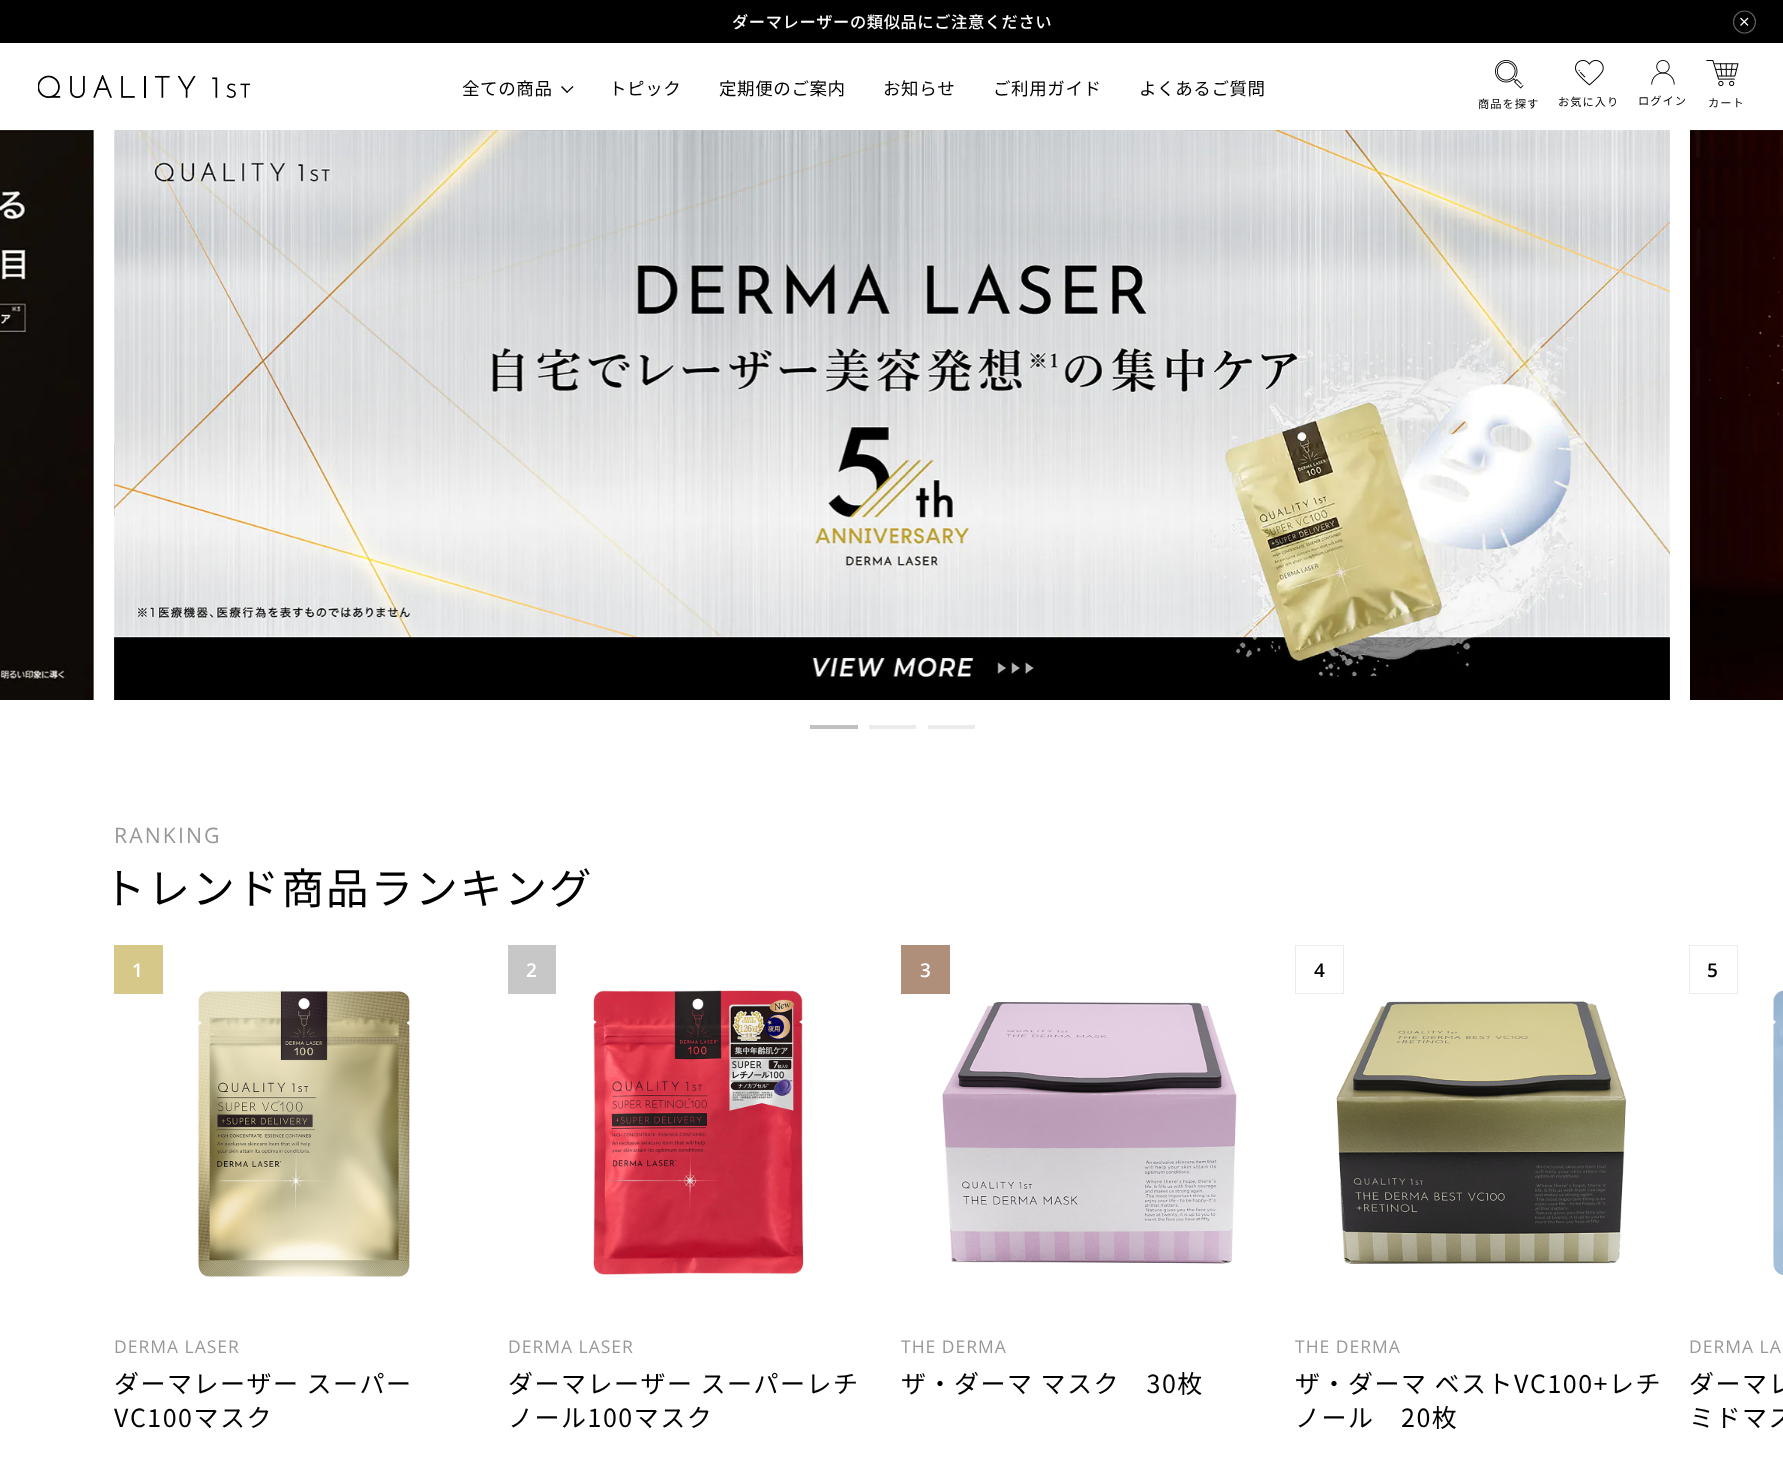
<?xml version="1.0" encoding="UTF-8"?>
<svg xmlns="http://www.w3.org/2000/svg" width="1783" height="1460">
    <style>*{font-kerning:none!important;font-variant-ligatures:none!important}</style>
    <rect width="100%" height="100%" fill="#FFFFFF"/>
    <rect x="0" y="0" width="1783" height="43" fill="#000000"/>
    <text x="732" y="28" font-family="Noto Sans JP" font-size="16.25" font-weight="100" letter-spacing="0.6" fill="#FFFFFF">ダーマレーザーの類似品にご注意ください</text>
    <path d="M 1748 18 L 1740.5 25.5 M 1748 25.5 L 1740.5 18" fill="none" stroke="#FFFFFF" stroke-width="1.2"/>
    <circle cx="1744.5" cy="22" r="11" fill="none" stroke="#5D5D5D" stroke-width="1.2"/>
    <image x="38" y="75" width="212" height="23" href="img_01.png"/>
    <text x="462" y="95" font-family="Noto Sans JP" font-size="17.5" letter-spacing="0.6" fill="#000000">全ての商品</text>
    <path d="M 572.5 86 L 573.5 87 L 567 93 L 566.5 92 Z" fill="#000000"/>
    <path d="M 562 86 L 568 92 L 567 93 L 561 87 Z" fill="#000000"/>
    <text x="609" y="95" font-family="Noto Sans JP" font-size="17.5" letter-spacing="0.6" fill="#000000">トピック</text>
    <text x="719" y="95" font-family="Noto Sans JP" font-size="17.5" letter-spacing="0.6" fill="#000000">定期便のご案内</text>
    <text x="883" y="95" font-family="Noto Sans JP" font-size="17.5" letter-spacing="0.6" fill="#000000">お知らせ</text>
    <text x="993" y="95" font-family="Noto Sans JP" font-size="17.5" letter-spacing="0.6" fill="#000000">ご利用ガイド</text>
    <text x="1139" y="95" font-family="Noto Sans JP" font-size="17.5" letter-spacing="0.6" fill="#000000">よくあるご質問</text>
    <image x="1495" y="60" width="29" height="29" href="img_02.png"/>
    <text x="1478" y="108" font-family="Noto Sans JP" font-size="11.25" letter-spacing="1" fill="#000000">商品を探す</text>
    <image x="1575" y="60" width="29" height="26" href="img_03.png"/>
    <text x="1558" y="106" font-family="Noto Sans JP" font-size="11.25" letter-spacing="1" fill="#000000">お気に入り</text>
    <image x="1651" y="60" width="24" height="25" href="img_04.png"/>
    <text x="1638" y="105" font-family="Noto Sans JP" font-size="11.25" letter-spacing="1" fill="#000000">ログイン</text>
    <image x="1706" y="60" width="33" height="27" href="img_05.png"/>
    <text x="1708" y="107" font-family="Noto Sans JP" font-size="11.25" letter-spacing="1" fill="#000000">カート</text>
    <image x="0" y="130" width="94" height="570" href="img_06.png"/>
    <image x="114" y="130" width="1556" height="570" href="img_07.png"/>
    <image x="1690" y="130" width="93" height="570" href="img_08.png"/>
    <rect x="810" y="725" width="48" height="4" fill="#C1C1C1"/>
    <rect x="869" y="725" width="47" height="4" fill="#EBEBEB"/>
    <rect x="928" y="725" width="47" height="4" fill="#EBEBEB"/>
    <text x="114" y="843" font-family="Open Sans" font-size="21.25" letter-spacing="2.1" fill="#989898">RANKING</text>
    <text x="103" y="904" font-family="Noto Sans JP" font-size="42.5" letter-spacing="2.1" fill="#000000">トレンド商品ランキング</text>
    <rect x="114" y="945" width="49" height="49" fill="#D6C888"/>
    <text x="132" y="977" font-family="Open Sans" font-size="19" font-weight="600" letter-spacing="0.6" fill="#FFFFFF">1</text>
    <image x="198" y="990" width="212" height="287" href="img_09.png"/>
    <text x="114" y="1353" font-family="Open Sans" font-size="17.5" letter-spacing="1" fill="#989898">DERMA LASER</text>
    <text font-family="Noto Sans JP" font-size="25" letter-spacing="1.5" fill="#000000">
        <tspan x="114" y="1393">ダーマレーザー スーパー</tspan>
        <tspan x="114" y="1427">VC100マスク</tspan>
    </text>
    <rect x="508" y="945" width="48" height="49" fill="#C7C7C7"/>
    <text x="526" y="977" font-family="Open Sans" font-size="19" font-weight="600" letter-spacing="0.6" fill="#FFFFFF">2</text>
    <image x="592" y="990" width="212" height="285" href="img_10.png"/>
    <text x="508" y="1353" font-family="Open Sans" font-size="17.5" letter-spacing="1" fill="#989898">DERMA LASER</text>
    <text font-family="Noto Sans JP" font-size="25" letter-spacing="1.5" fill="#000000">
        <tspan x="508" y="1393">ダーマレーザー スーパーレチ</tspan>
        <tspan x="508" y="1427">ノール100マスク</tspan>
    </text>
    <rect x="901" y="945" width="49" height="49" fill="#AF8E7A"/>
    <text x="920" y="977" font-family="Open Sans" font-size="19" font-weight="600" letter-spacing="0.6" fill="#FFFFFF">3</text>
    <image x="942" y="1002" width="295" height="262" href="img_11.png"/>
    <text x="901" y="1353" font-family="Open Sans" font-size="17.5" letter-spacing="1" fill="#989898">THE DERMA</text>
    <text x="901" y="1393" font-family="Noto Sans JP" font-size="25" letter-spacing="1.5" fill="#000000">ザ・ダーマ マスク　30枚</text>
    <rect x="1295.5" y="945.5" width="48" height="48" fill="none" stroke="#EBEBEB"/>
    <text x="1314" y="977" font-family="Open Sans" font-size="19" font-weight="600" letter-spacing="0.6" fill="#000000">4</text>
    <image x="1336" y="1001" width="291" height="263" href="img_12.png"/>
    <text x="1295" y="1353" font-family="Open Sans" font-size="17.5" letter-spacing="1" fill="#989898">THE DERMA</text>
    <text font-family="Noto Sans JP" font-size="25" letter-spacing="1.5" fill="#000000">
        <tspan x="1295" y="1393">ザ・ダーマ ベストVC100+レチ</tspan>
        <tspan x="1295" y="1427">ノール　20枚</tspan>
    </text>
    <rect x="1689.5" y="945.5" width="48" height="48" fill="none" stroke="#EBEBEB"/>
    <text x="1707" y="977" font-family="Open Sans" font-size="19" font-weight="600" letter-spacing="0.6" fill="#000000">5</text>
    <image x="1773" y="990" width="10" height="285" href="img_13.png"/>
    <text x="1689" y="1353" font-family="Open Sans" font-size="17.5" letter-spacing="1" fill="#989898">DERMA LA</text>
    <text font-family="Noto Sans JP" font-size="25" letter-spacing="1.5" fill="#000000">
        <tspan x="1689" y="1393">ダーマレ</tspan>
        <tspan x="1689" y="1427">ミドマス</tspan>
    </text>
</svg>
